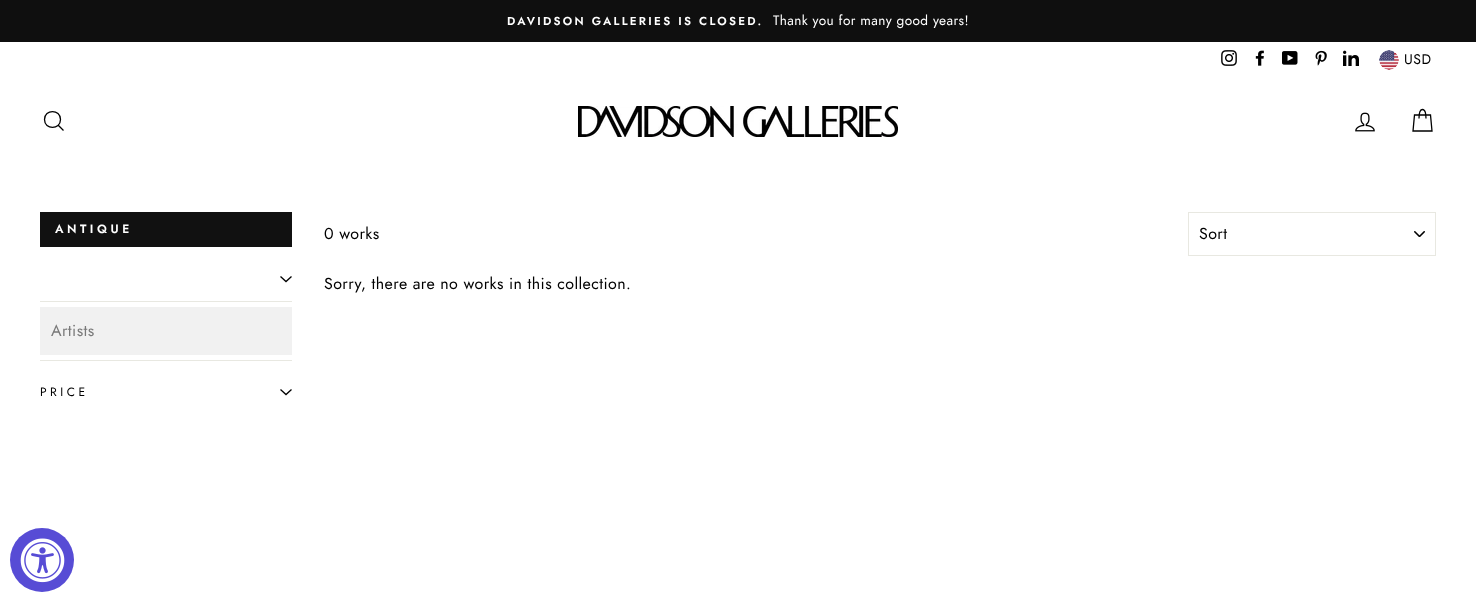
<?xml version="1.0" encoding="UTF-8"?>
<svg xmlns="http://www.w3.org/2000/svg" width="1476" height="602">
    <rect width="100%" height="100%" fill="#FFFFFF"/>
    <rect x="0" y="0" width="1476" height="42" fill="#0F0F0F"/>
    <text x="507" y="25" font-family="Jost" font-size="11.6" font-weight="600" letter-spacing="2.3" fill="#FFFFFF">DAVIDSON GALLERIES IS CLOSED.</text>
    <text x="773" y="25" font-family="Jost" font-size="13.6" letter-spacing="0.4" fill="#FFFFFF">Thank you for many good years!</text>
    <image x="1221" y="50" width="16" height="16" href="img_01.png"/>
    <image x="1255" y="50" width="9" height="16" href="img_02.png"/>
    <image x="1282" y="51" width="16" height="14" href="img_03.png"/>
    <image x="1315" y="50" width="12" height="16" href="img_04.png"/>
    <image x="1343" y="50" width="16" height="16" href="img_05.png"/>
    <image x="1379" y="50" width="20" height="20" href="img_06.png"/>
    <text x="1404" y="64" font-family="Jost" font-size="14" letter-spacing="0.5" fill="#000000">USD</text>
    <path d="M 60.5 119.5 C 60.5 130 44.5 130 44.5 119.5 C 44.5 109 60.5 109 60.5 119.5 Z M 63.5 130.5 L 58.5 125.5" fill="none" stroke="#000000" stroke-width="1.3"/>
    <image x="578" y="106" width="320" height="31" href="img_07.png"/>
    <image x="1355" y="112" width="20" height="20" href="img_08.png"/>
    <path d="M 1419 118.5 C 1419 106.5 1426 106.5 1426 118.5 M 1414.5 115 H 1430.5 L 1432 131 H 1413 Z" fill="none" stroke="#000000" stroke-width="1.3"/>
    <rect x="40" y="212" width="252" height="35" fill="#111111"/>
    <text x="55" y="233" font-family="Jost" font-size="12" font-weight="600" letter-spacing="3.5" fill="#FFFFFF">ANTIQUE</text>
    <path d="M 280.5 276.5 L 286 281.5 L 291.5 276.5" fill="none" stroke="#000000" stroke-width="1.3"/>
    <rect x="40" y="301" width="252" height="1" fill="#E8E8E1"/>
    <rect x="40" y="307" width="252" height="48" fill="#F1F1F1"/>
    <text x="51" y="336" font-family="Jost" font-size="16" letter-spacing="0.4" fill="#797979">Artists</text>
    <rect x="40" y="360" width="252" height="1" fill="#E8E8E1"/>
    <text x="40" y="396" font-family="Jost" font-size="12" letter-spacing="3.5" fill="#000000">PRICE</text>
    <path d="M 280.5 389.5 L 286 394.5 L 291.5 389.5" fill="none" stroke="#000000" stroke-width="1.3"/>
    <text x="324" y="239" font-family="Jost" font-size="16" letter-spacing="0.4" fill="#000000">0 works</text>
    <image x="1414" y="231" width="11" height="6" href="img_09.png"/>
    <rect x="1188.5" y="212.5" width="247" height="43" fill="none" stroke="#E8E8E1"/>
    <text x="1199" y="239" font-family="Jost" font-size="16" letter-spacing="0.4" fill="#000000">Sort</text>
    <text x="324" y="289" font-family="Jost" font-size="16" letter-spacing="0.4" fill="#000000">Sorry, there are no works in this collection.</text>
    <circle cx="42" cy="560" r="32" fill="#574CD5"/>
    <image x="20" y="538" width="45" height="45" href="img_10.png"/>
</svg>
